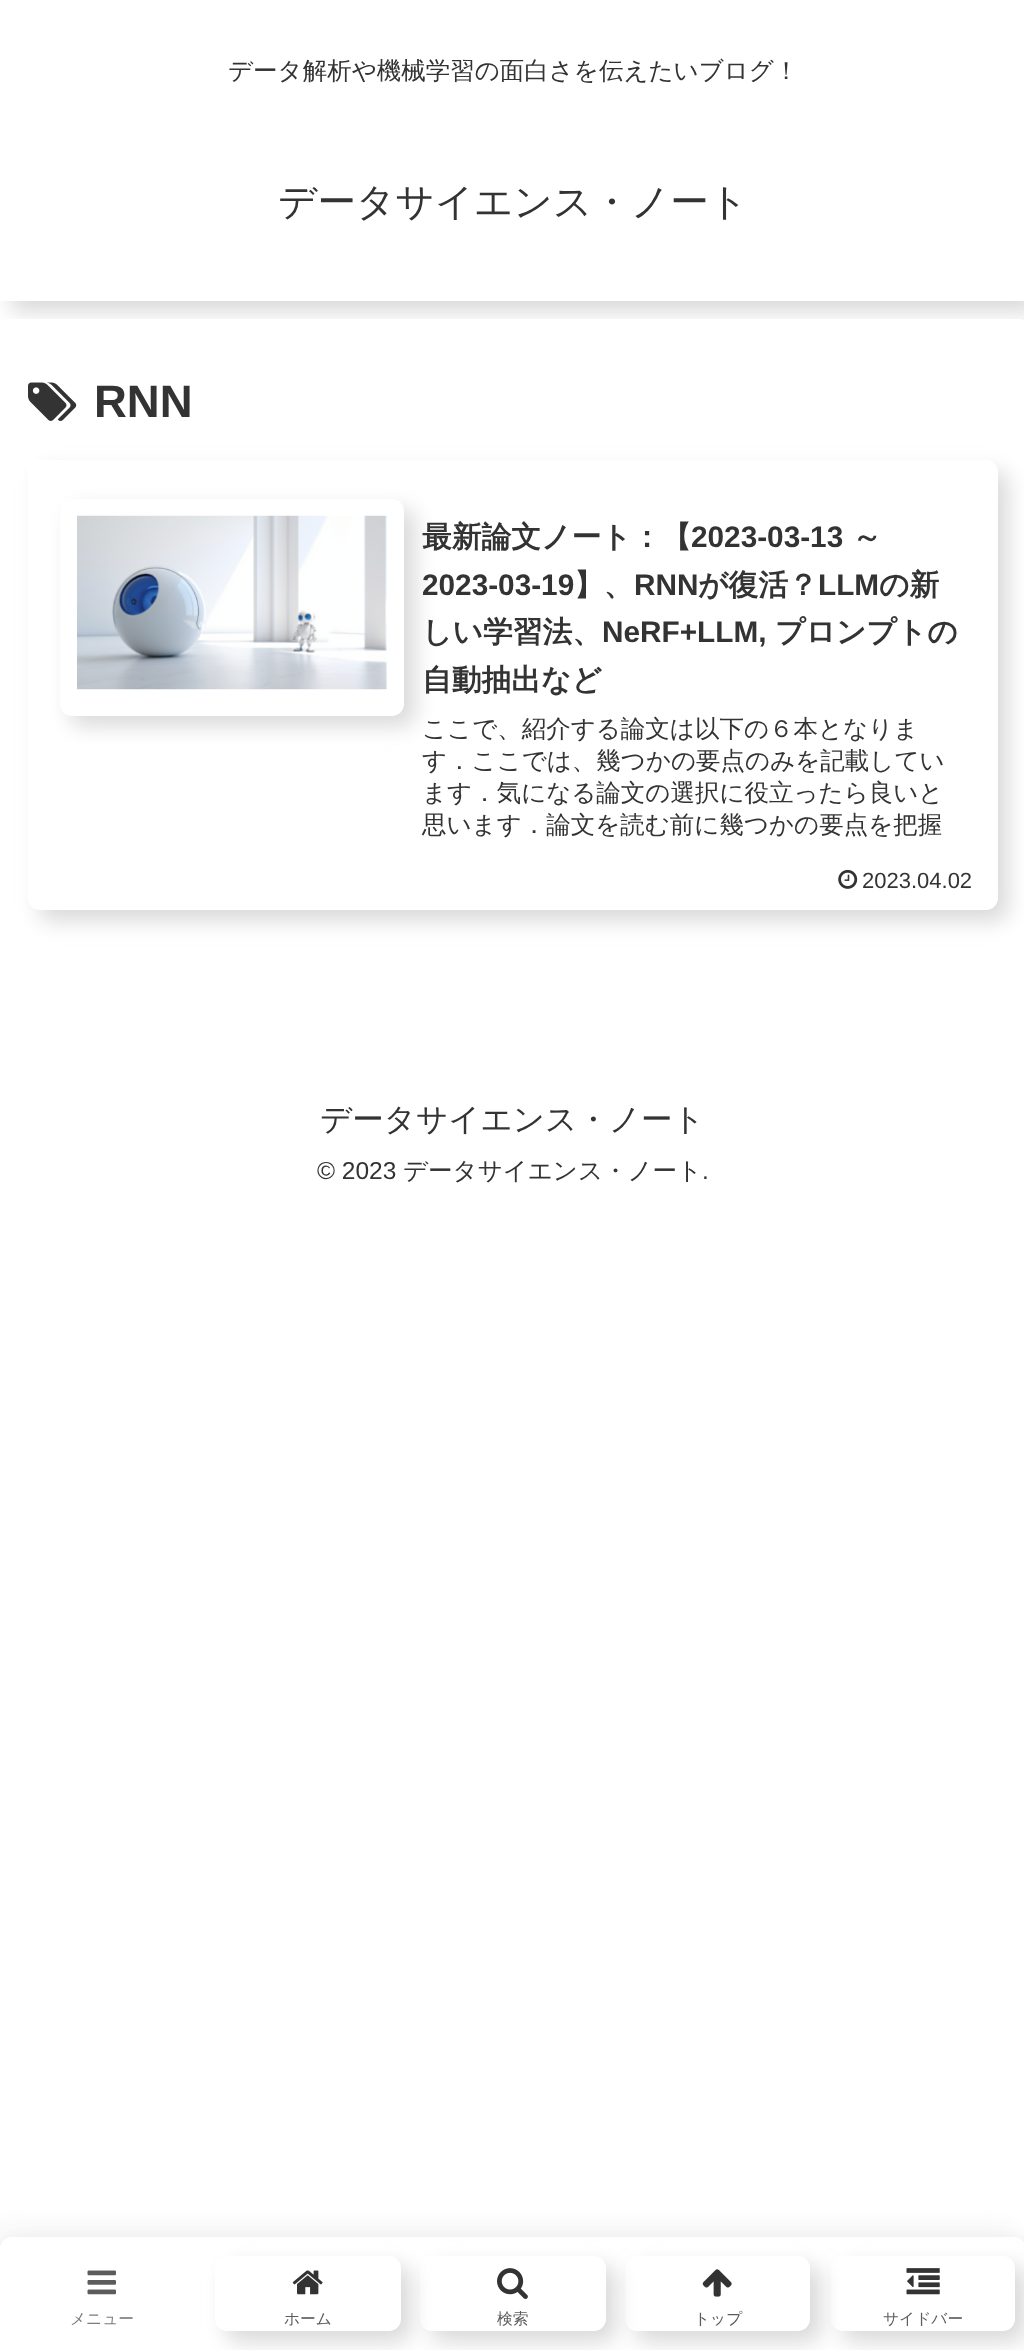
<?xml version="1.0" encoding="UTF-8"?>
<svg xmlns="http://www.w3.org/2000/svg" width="1024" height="2350">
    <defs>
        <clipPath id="clip1"><rect x="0" y="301" width="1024" height="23"/></clipPath>
        <filter id="blur1" x="-50%" y="-200%" width="200%" height="500%"><feGaussianBlur stdDeviation="10.5"/></filter>
        <clipPath id="clip2"><path d="M 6 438 H 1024 V 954 H 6 Z M 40 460 H 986 C 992.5 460 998 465.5 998 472 V 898 C 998 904.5 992.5 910 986 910 H 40 C 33.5 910 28 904.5 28 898 V 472 C 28 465.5 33.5 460 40 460 Z" clip-rule="evenodd"/></clipPath>
        <clipPath id="clip3"><path d="M 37 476 H 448 V 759 H 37 Z M 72 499 H 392 C 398.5 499 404 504.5 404 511 V 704 C 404 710.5 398.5 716 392 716 H 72 C 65.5 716 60 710.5 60 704 V 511 C 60 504.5 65.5 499 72 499 Z" clip-rule="evenodd"/></clipPath>
        <clipPath id="clip4"><path d="M 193 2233 H 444 V 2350 H 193 Z M 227 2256 H 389 C 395.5 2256 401 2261.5 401 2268 V 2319 C 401 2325.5 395.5 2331 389 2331 H 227 C 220.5 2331 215 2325.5 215 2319 V 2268 C 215 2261.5 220.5 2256 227 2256 Z" clip-rule="evenodd"/></clipPath>
        <clipPath id="clip5"><path d="M 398 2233 H 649 V 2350 H 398 Z M 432 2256 H 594 C 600.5 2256 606 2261.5 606 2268 V 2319 C 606 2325.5 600.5 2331 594 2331 H 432 C 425.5 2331 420 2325.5 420 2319 V 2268 C 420 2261.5 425.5 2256 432 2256 Z" clip-rule="evenodd"/></clipPath>
        <clipPath id="clip6"><path d="M 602 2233 H 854 V 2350 H 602 Z M 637 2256 H 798 C 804.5 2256 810 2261.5 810 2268 V 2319 C 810 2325.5 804.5 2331 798 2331 H 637 C 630.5 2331 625 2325.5 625 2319 V 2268 C 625 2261.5 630.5 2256 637 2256 Z" clip-rule="evenodd"/></clipPath>
        <clipPath id="clip7"><path d="M 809 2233 H 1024 V 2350 H 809 Z M 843 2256 H 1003 C 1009.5 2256 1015 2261.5 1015 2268 V 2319 C 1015 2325.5 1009.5 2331 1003 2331 H 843 C 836.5 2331 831 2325.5 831 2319 V 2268 C 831 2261.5 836.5 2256 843 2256 Z" clip-rule="evenodd"/></clipPath>
    </defs>
    <rect width="100%" height="100%" fill="#FFFFFF"/>
    <g clip-path="url(#clip1)">
        <rect x="11" y="11" width="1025" height="301" fill="#D9D9D9" filter="url(#blur1)"/>
    </g>
    <text x="228" y="79" font-family="WenQuanYi Zen Hei" font-size="24.5" font-weight="500" fill="#333333">データ解析や機械学習の面白さを伝えたいブログ！</text>
    <text x="278" y="215" font-family="WenQuanYi Zen Hei" font-size="38.5" font-weight="500" fill="#333333">データサイエンス・ノート</text>
    <rect x="0" y="319" width="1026" height="649" rx="7" fill="#FFFFFF"/>
    <image x="28" y="382" width="49" height="39" href="img_01.png"/>
    <text x="94" y="417" font-family="Liberation Sans" font-size="45.5" font-weight="700" fill="#333333">RNN</text>
    <g clip-path="url(#clip2)">
        <rect x="39" y="471" width="969" height="450" rx="12" fill="#D9D9D9" filter="url(#blur1)"/>
    </g>
    <g clip-path="url(#clip3)">
        <rect x="70" y="509" width="345" height="217" rx="12" fill="#D9D9D9" filter="url(#blur1)"/>
    </g>
    <image x="77" y="515" width="310" height="175" href="img_02.png"/>
    <text x="422" y="547" font-family="WenQuanYi Zen Hei" font-size="29.75" font-weight="700" fill="#333333">最新論文ノート：【</text>
    <text x="691" y="547" font-family="Liberation Sans" font-size="29.75" font-weight="700" fill="#333333">2023-03-13</text>
    <text x="852" y="547" font-family="WenQuanYi Zen Hei" font-size="29.75" font-weight="700" fill="#333333">～</text>
    <text x="422" y="595" font-family="Liberation Sans" font-size="29.75" font-weight="700" fill="#333333">2023-03-19</text>
    <text x="574" y="595" font-family="WenQuanYi Zen Hei" font-size="29.75" font-weight="700" fill="#333333">】、</text>
    <text x="634" y="595" font-family="Liberation Sans" font-size="29.75" font-weight="700" fill="#333333">RNN</text>
    <text x="698" y="595" font-family="WenQuanYi Zen Hei" font-size="29.75" font-weight="700" fill="#333333">が復活？</text>
    <text x="818" y="595" font-family="Liberation Sans" font-size="29.75" font-weight="700" fill="#333333">LLM</text>
    <text x="879" y="595" font-family="WenQuanYi Zen Hei" font-size="29.75" font-weight="700" fill="#333333">の新</text>
    <text x="422" y="642" font-family="WenQuanYi Zen Hei" font-size="29.75" font-weight="700" fill="#333333">しい学習法、</text>
    <text x="602" y="642" font-family="Liberation Sans" font-size="29.75" font-weight="700" fill="#333333">NeRF+LLM,</text>
    <text x="775" y="642" font-family="WenQuanYi Zen Hei" font-size="29.75" font-weight="700" fill="#333333">プロンプトの</text>
    <text x="422" y="690" font-family="WenQuanYi Zen Hei" font-size="29.75" font-weight="700" fill="#333333">自動抽出など</text>
    <text font-family="WenQuanYi Zen Hei" font-size="24.5" font-weight="500" fill="#333333">
        <tspan x="422" y="737">ここで、紹介する論文は以下の６本となりま</tspan>
        <tspan x="422" y="769">す．ここでは、幾つかの要点のみを記載してい</tspan>
        <tspan x="422" y="801">ます．気になる論文の選択に役立ったら良いと</tspan>
        <tspan x="422" y="833">思います．論文を読む前に幾つかの要点を把握</tspan>
    </text>
    <image x="838" y="869" width="20" height="20" href="img_03.png"/>
    <text x="862" y="888" font-family="Liberation Sans" font-size="22" fill="#333333">2023.04.02</text>
    <text x="320" y="1130" font-family="WenQuanYi Zen Hei" font-size="31.5" font-weight="500" fill="#333333">データサイエンス・ノート</text>
    <text x="317" y="1179" font-family="Liberation Sans" font-size="24.5" fill="#333333">© 2023</text>
    <text x="403" y="1179" font-family="WenQuanYi Zen Hei" font-size="24.5" font-weight="500" fill="#333333">データサイエンス・ノート</text>
    <text x="702" y="1179" font-family="Liberation Sans" font-size="24.5" fill="#333333">.</text>
    <rect x="-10" y="2226" width="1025" height="114" rx="12" fill="#F5F5F5" filter="url(#blur1)"/>
    <rect x="11" y="2247" width="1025" height="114" rx="12" fill="#D9D9D9" filter="url(#blur1)"/>
    <path d="M 12 2237 H 1014 C 1020.5 2237 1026 2242.5 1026 2249 V 2350 H 0 V 2249 C 0 2242.5 5.5 2237 12 2237 Z" fill="#FFFFFF"/>
    <image x="87" y="2270" width="29" height="25" href="img_04.png"/>
    <text x="70" y="2324" font-family="WenQuanYi Zen Hei" font-size="15.75" font-weight="500" fill="#7C7C7C">メニュー</text>
    <g clip-path="url(#clip4)">
        <rect x="226" y="2266" width="185" height="76" rx="12" fill="#D9D9D9" filter="url(#blur1)"/>
    </g>
    <image x="292" y="2270" width="31" height="25" href="img_05.png"/>
    <text x="284" y="2324" font-family="WenQuanYi Zen Hei" font-size="15.75" font-weight="500" fill="#5C5C5C">ホーム</text>
    <g clip-path="url(#clip5)">
        <rect x="431" y="2266" width="185" height="76" rx="12" fill="#D9D9D9" filter="url(#blur1)"/>
    </g>
    <image x="497" y="2268" width="31" height="31" href="img_06.png"/>
    <text x="497" y="2324" font-family="WenQuanYi Zen Hei" font-size="15.75" font-weight="500" fill="#5C5C5C">検索</text>
    <g clip-path="url(#clip6)">
        <rect x="635" y="2266" width="186" height="76" rx="12" fill="#D9D9D9" filter="url(#blur1)"/>
    </g>
    <image x="702" y="2269" width="30" height="28" href="img_07.png"/>
    <text x="694" y="2324" font-family="WenQuanYi Zen Hei" font-size="15.75" font-weight="500" fill="#5C5C5C">トップ</text>
    <g clip-path="url(#clip7)">
        <rect x="842" y="2266" width="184" height="76" rx="12" fill="#D9D9D9" filter="url(#blur1)"/>
    </g>
    <image x="906" y="2268" width="34" height="27" href="img_08.png"/>
    <text x="883" y="2324" font-family="WenQuanYi Zen Hei" font-size="15.75" font-weight="500" fill="#5C5C5C">サイドバー</text>
</svg>
